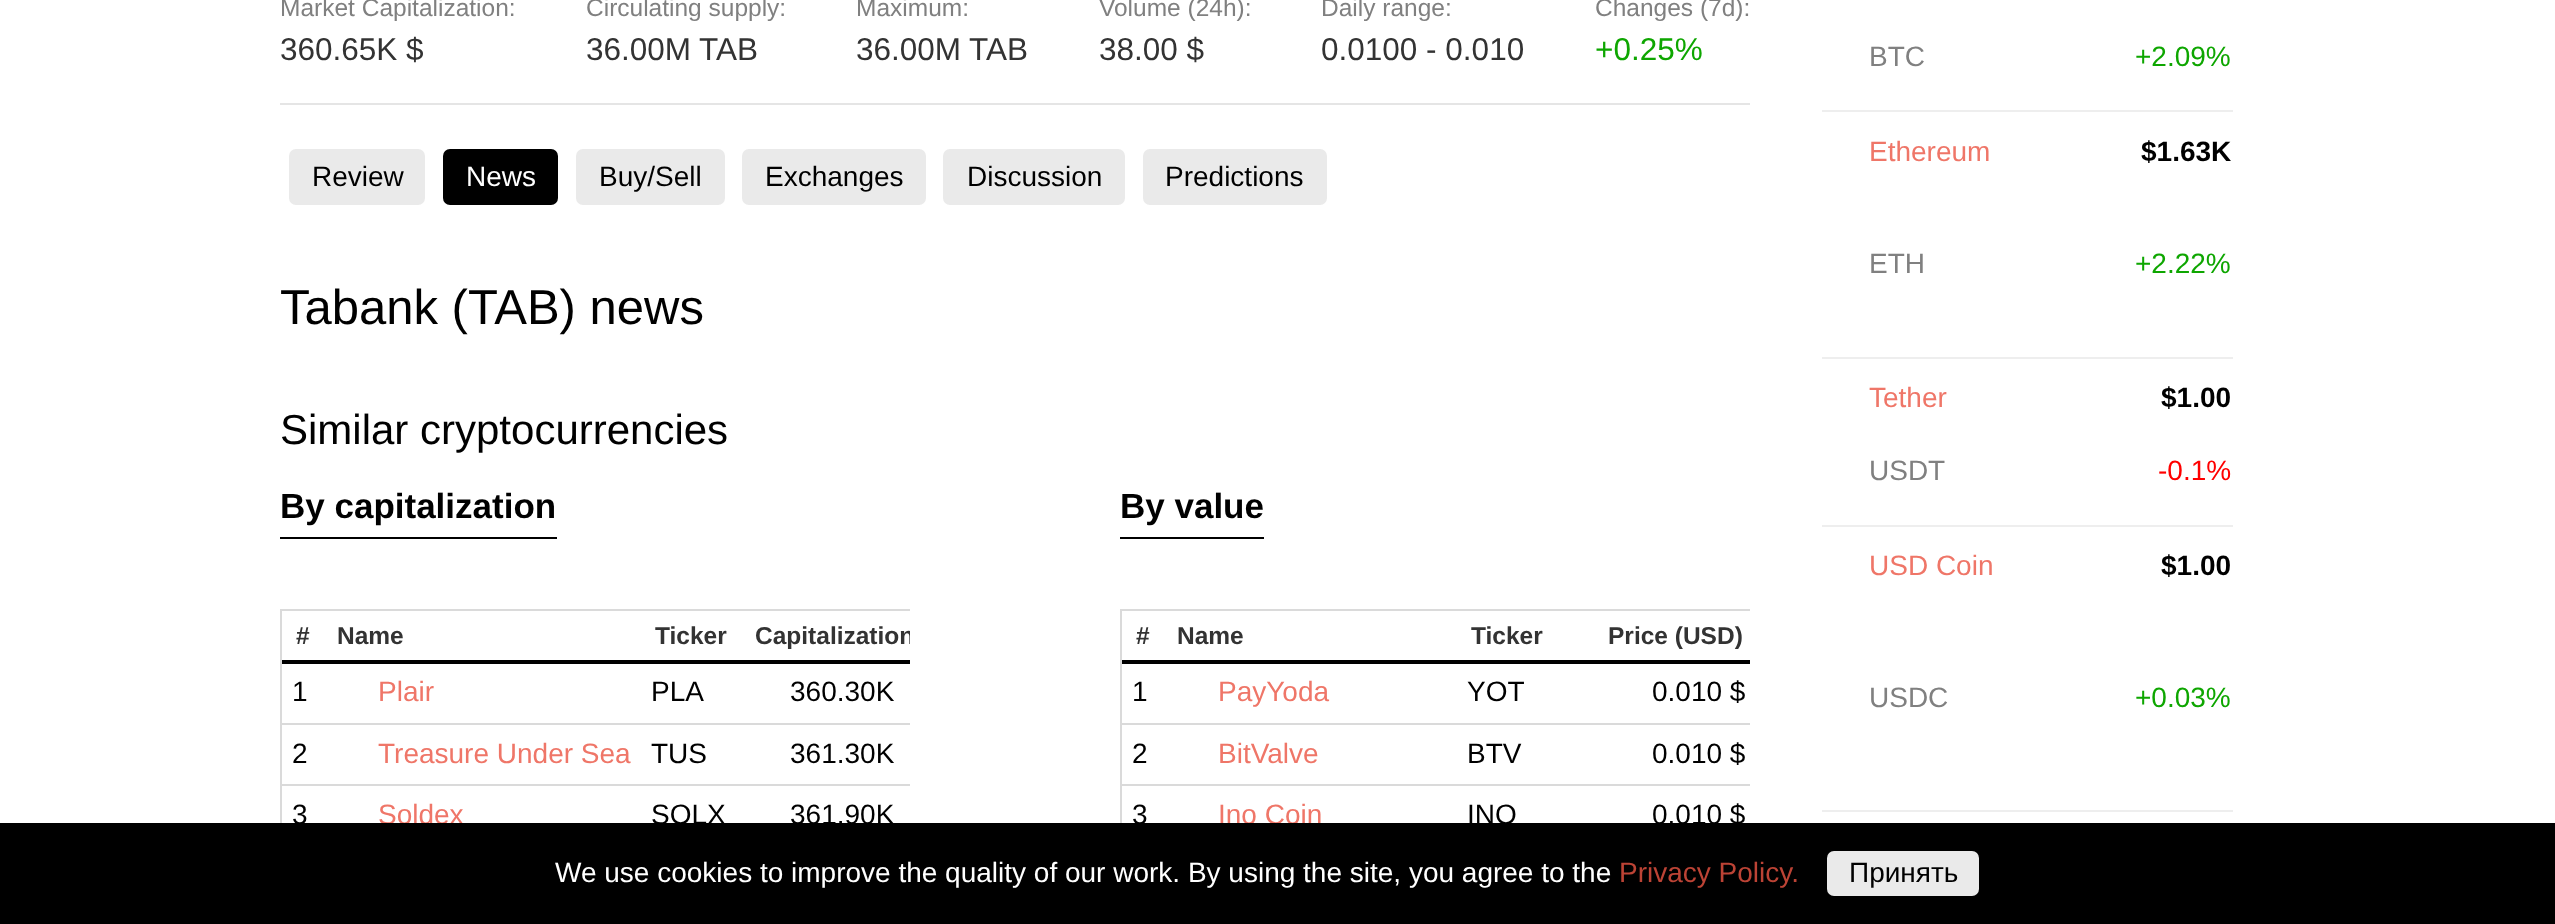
<?xml version="1.0" encoding="UTF-8"?>
<svg xmlns="http://www.w3.org/2000/svg" width="2555" height="924">
    <defs>
        <clipPath id="clip1"><rect x="280" y="609" width="630" height="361"/></clipPath>
    </defs>
    <rect width="100%" height="100%" fill="#FFFFFF"/>
    <rect x="280" y="103" width="1470" height="2" fill="#E5E5E5"/>
    <text x="280" y="16" font-family="Liberation Sans" font-size="24.5" fill="#808080">Market Capitalization:</text>
    <text x="280" y="60" font-family="Liberation Sans" font-size="31.5" fill="#333333">360.65K $</text>
    <text x="586" y="16" font-family="Liberation Sans" font-size="24.5" fill="#808080">Circulating supply:</text>
    <text x="586" y="60" font-family="Liberation Sans" font-size="31.5" fill="#333333">36.00M</text>
    <text x="699" y="60" font-family="Liberation Sans" font-size="31.5" fill="#333333">TAB</text>
    <text x="856" y="16" font-family="Liberation Sans" font-size="24.5" fill="#808080">Maximum:</text>
    <text x="856" y="60" font-family="Liberation Sans" font-size="31.5" fill="#333333">36.00M</text>
    <text x="969" y="60" font-family="Liberation Sans" font-size="31.5" fill="#333333">TAB</text>
    <text x="1099" y="16" font-family="Liberation Sans" font-size="24.5" fill="#808080">Volume (24h):</text>
    <text x="1099" y="60" font-family="Liberation Sans" font-size="31.5" fill="#333333">38.00 $</text>
    <text x="1321" y="16" font-family="Liberation Sans" font-size="24.5" fill="#808080">Daily range:</text>
    <text x="1321" y="60" font-family="Liberation Sans" font-size="31.5" fill="#333333">0.0100 - 0.010</text>
    <text x="1595" y="16" font-family="Liberation Sans" font-size="24.5" fill="#808080">Changes (7d):</text>
    <text x="1595" y="60" font-family="Liberation Sans" font-size="31.5" fill="#0EA600">+0.25%</text>
    <rect x="289" y="149" width="136" height="56" rx="7" fill="#EAEAEA"/>
    <text x="312" y="186" font-family="Liberation Sans" font-size="28" fill="#000000">Review</text>
    <rect x="443" y="149" width="115" height="56" rx="7" fill="#000000"/>
    <text x="466" y="186" font-family="Liberation Sans" font-size="28" fill="#FFFFFF">News</text>
    <rect x="576" y="149" width="149" height="56" rx="7" fill="#EAEAEA"/>
    <text x="599" y="186" font-family="Liberation Sans" font-size="28" fill="#000000">Buy/Sell</text>
    <rect x="742" y="149" width="184" height="56" rx="7" fill="#EAEAEA"/>
    <text x="765" y="186" font-family="Liberation Sans" font-size="28" fill="#000000">Exchanges</text>
    <rect x="943" y="149" width="182" height="56" rx="7" fill="#EAEAEA"/>
    <text x="967" y="186" font-family="Liberation Sans" font-size="28" fill="#000000">Discussion</text>
    <rect x="1143" y="149" width="184" height="56" rx="7" fill="#EAEAEA"/>
    <text x="1165" y="186" font-family="Liberation Sans" font-size="28" fill="#000000">Predictions</text>
    <text x="280" y="324" font-family="Liberation Sans" font-size="49" fill="#000000">Tabank (TAB) news</text>
    <text x="280" y="444" font-family="Liberation Sans" font-size="42" fill="#000000">Similar cryptocurrencies</text>
    <rect x="280" y="537" width="277" height="2" fill="#000000"/>
    <text x="280" y="518" font-family="Liberation Sans" font-size="35" font-weight="700" fill="#000000">By capitalization</text>
    <rect x="280" y="609" width="630" height="2" fill="#DADADA"/>
    <rect x="280" y="609" width="2" height="214" fill="#DADADA"/>
    <rect x="282" y="660" width="628" height="4" fill="#000000"/>
    <text x="296" y="644" font-family="Liberation Sans" font-size="24.5" font-weight="700" fill="#333333">#</text>
    <text x="337" y="644" font-family="Liberation Sans" font-size="24.5" font-weight="700" fill="#333333">Name</text>
    <text x="655" y="644" font-family="Liberation Sans" font-size="24.5" font-weight="700" fill="#333333">Ticker</text>
    <g clip-path="url(#clip1)">
        <text x="755" y="644" font-family="Liberation Sans" font-size="24.5" font-weight="700" fill="#333333">Capitalization</text>
    </g>
    <rect x="282" y="723" width="359" height="2" fill="#DADADA"/>
    <text x="292" y="701" font-family="Liberation Sans" font-size="28" fill="#000000">1</text>
    <text x="378" y="701" font-family="Liberation Sans" font-size="28" fill="#EF7668">Plair</text>
    <text x="651" y="701" font-family="Liberation Sans" font-size="28" fill="#000000">PLA</text>
    <rect x="641" y="723" width="269" height="2" fill="#DADADA"/>
    <text x="790" y="701" font-family="Liberation Sans" font-size="28" fill="#000000">360.30K</text>
    <rect x="282" y="784" width="359" height="2" fill="#DADADA"/>
    <text x="292" y="763" font-family="Liberation Sans" font-size="28" fill="#000000">2</text>
    <text x="378" y="763" font-family="Liberation Sans" font-size="28" fill="#EF7668">Treasure Under Sea</text>
    <text x="651" y="763" font-family="Liberation Sans" font-size="28" fill="#000000">TUS</text>
    <rect x="641" y="784" width="269" height="2" fill="#DADADA"/>
    <text x="790" y="763" font-family="Liberation Sans" font-size="28" fill="#000000">361.30K</text>
    <text x="292" y="824" font-family="Liberation Sans" font-size="28" fill="#000000">3</text>
    <text x="378" y="824" font-family="Liberation Sans" font-size="28" fill="#EF7668">Soldex</text>
    <text x="651" y="824" font-family="Liberation Sans" font-size="28" fill="#000000">SOLX</text>
    <text x="790" y="824" font-family="Liberation Sans" font-size="28" fill="#000000">361.90K</text>
    <rect x="1120" y="537" width="144" height="2" fill="#000000"/>
    <text x="1120" y="518" font-family="Liberation Sans" font-size="35" font-weight="700" fill="#000000">By value</text>
    <rect x="1120" y="609" width="630" height="2" fill="#DADADA"/>
    <rect x="1120" y="609" width="2" height="214" fill="#DADADA"/>
    <rect x="1122" y="660" width="628" height="4" fill="#000000"/>
    <text x="1136" y="644" font-family="Liberation Sans" font-size="24.5" font-weight="700" fill="#333333">#</text>
    <text x="1177" y="644" font-family="Liberation Sans" font-size="24.5" font-weight="700" fill="#333333">Name</text>
    <text x="1471" y="644" font-family="Liberation Sans" font-size="24.5" font-weight="700" fill="#333333">Ticker</text>
    <text x="1608" y="644" font-family="Liberation Sans" font-size="24.5" font-weight="700" fill="#333333">Price (USD)</text>
    <rect x="1122" y="723" width="336" height="2" fill="#DADADA"/>
    <text x="1132" y="701" font-family="Liberation Sans" font-size="28" fill="#000000">1</text>
    <text x="1218" y="701" font-family="Liberation Sans" font-size="28" fill="#EF7668">PayYoda</text>
    <text x="1467" y="701" font-family="Liberation Sans" font-size="28" fill="#000000">YOT</text>
    <rect x="1458" y="723" width="292" height="2" fill="#DADADA"/>
    <text x="1652" y="701" font-family="Liberation Sans" font-size="28" fill="#000000">0.010 $</text>
    <rect x="1122" y="784" width="336" height="2" fill="#DADADA"/>
    <text x="1132" y="763" font-family="Liberation Sans" font-size="28" fill="#000000">2</text>
    <text x="1218" y="763" font-family="Liberation Sans" font-size="28" fill="#EF7668">BitValve</text>
    <text x="1467" y="763" font-family="Liberation Sans" font-size="28" fill="#000000">BTV</text>
    <rect x="1458" y="784" width="292" height="2" fill="#DADADA"/>
    <text x="1652" y="763" font-family="Liberation Sans" font-size="28" fill="#000000">0.010 $</text>
    <text x="1132" y="824" font-family="Liberation Sans" font-size="28" fill="#000000">3</text>
    <text x="1218" y="824" font-family="Liberation Sans" font-size="28" fill="#EF7668">Ino Coin</text>
    <text x="1467" y="824" font-family="Liberation Sans" font-size="28" fill="#000000">INO</text>
    <text x="1652" y="824" font-family="Liberation Sans" font-size="28" fill="#000000">0.010 $</text>
    <rect x="1822" y="110" width="411" height="2" fill="#EEEEEE"/>
    <text x="1869" y="66" font-family="Liberation Sans" font-size="28" fill="#808080">BTC</text>
    <text x="2135" y="66" font-family="Liberation Sans" font-size="28" fill="#0EA600">+2.09%</text>
    <rect x="1822" y="357" width="411" height="2" fill="#EEEEEE"/>
    <text x="1869" y="161" font-family="Liberation Sans" font-size="28" fill="#EF7668">Ethereum</text>
    <text x="2141" y="161" font-family="Liberation Sans" font-size="28" font-weight="700" fill="#000000">$1.63K</text>
    <text x="1869" y="273" font-family="Liberation Sans" font-size="28" fill="#808080">ETH</text>
    <text x="2135" y="273" font-family="Liberation Sans" font-size="28" fill="#0EA600">+2.22%</text>
    <rect x="1822" y="525" width="411" height="2" fill="#EEEEEE"/>
    <text x="1869" y="407" font-family="Liberation Sans" font-size="28" fill="#EF7668">Tether</text>
    <text x="2161" y="407" font-family="Liberation Sans" font-size="28" font-weight="700" fill="#000000">$1.00</text>
    <text x="1869" y="480" font-family="Liberation Sans" font-size="28" fill="#808080">USDT</text>
    <text x="2158" y="480" font-family="Liberation Sans" font-size="28" fill="#FF0000">-0.1%</text>
    <rect x="1822" y="810" width="411" height="2" fill="#EEEEEE"/>
    <text x="1869" y="575" font-family="Liberation Sans" font-size="28" fill="#EF7668">USD Coin</text>
    <text x="2161" y="575" font-family="Liberation Sans" font-size="28" font-weight="700" fill="#000000">$1.00</text>
    <text x="1869" y="707" font-family="Liberation Sans" font-size="28" fill="#808080">USDC</text>
    <text x="2135" y="707" font-family="Liberation Sans" font-size="28" fill="#0EA600">+0.03%</text>
    <rect x="0" y="823" width="2555" height="101" fill="#000000"/>
    <text x="555" y="882" font-family="Liberation Sans" font-size="28" fill="#FFFFFF">We use cookies to improve the quality of our work. By using the site, you agree to the</text>
    <text x="1619" y="882" font-family="Liberation Sans" font-size="28" fill="#BC4335">Privacy Policy.</text>
    <rect x="1827" y="851" width="152" height="45" rx="7" fill="#EAEAEA"/>
    <text x="1849" y="882" font-family="Liberation Sans" font-size="28" fill="#000000">Принять</text>
</svg>
